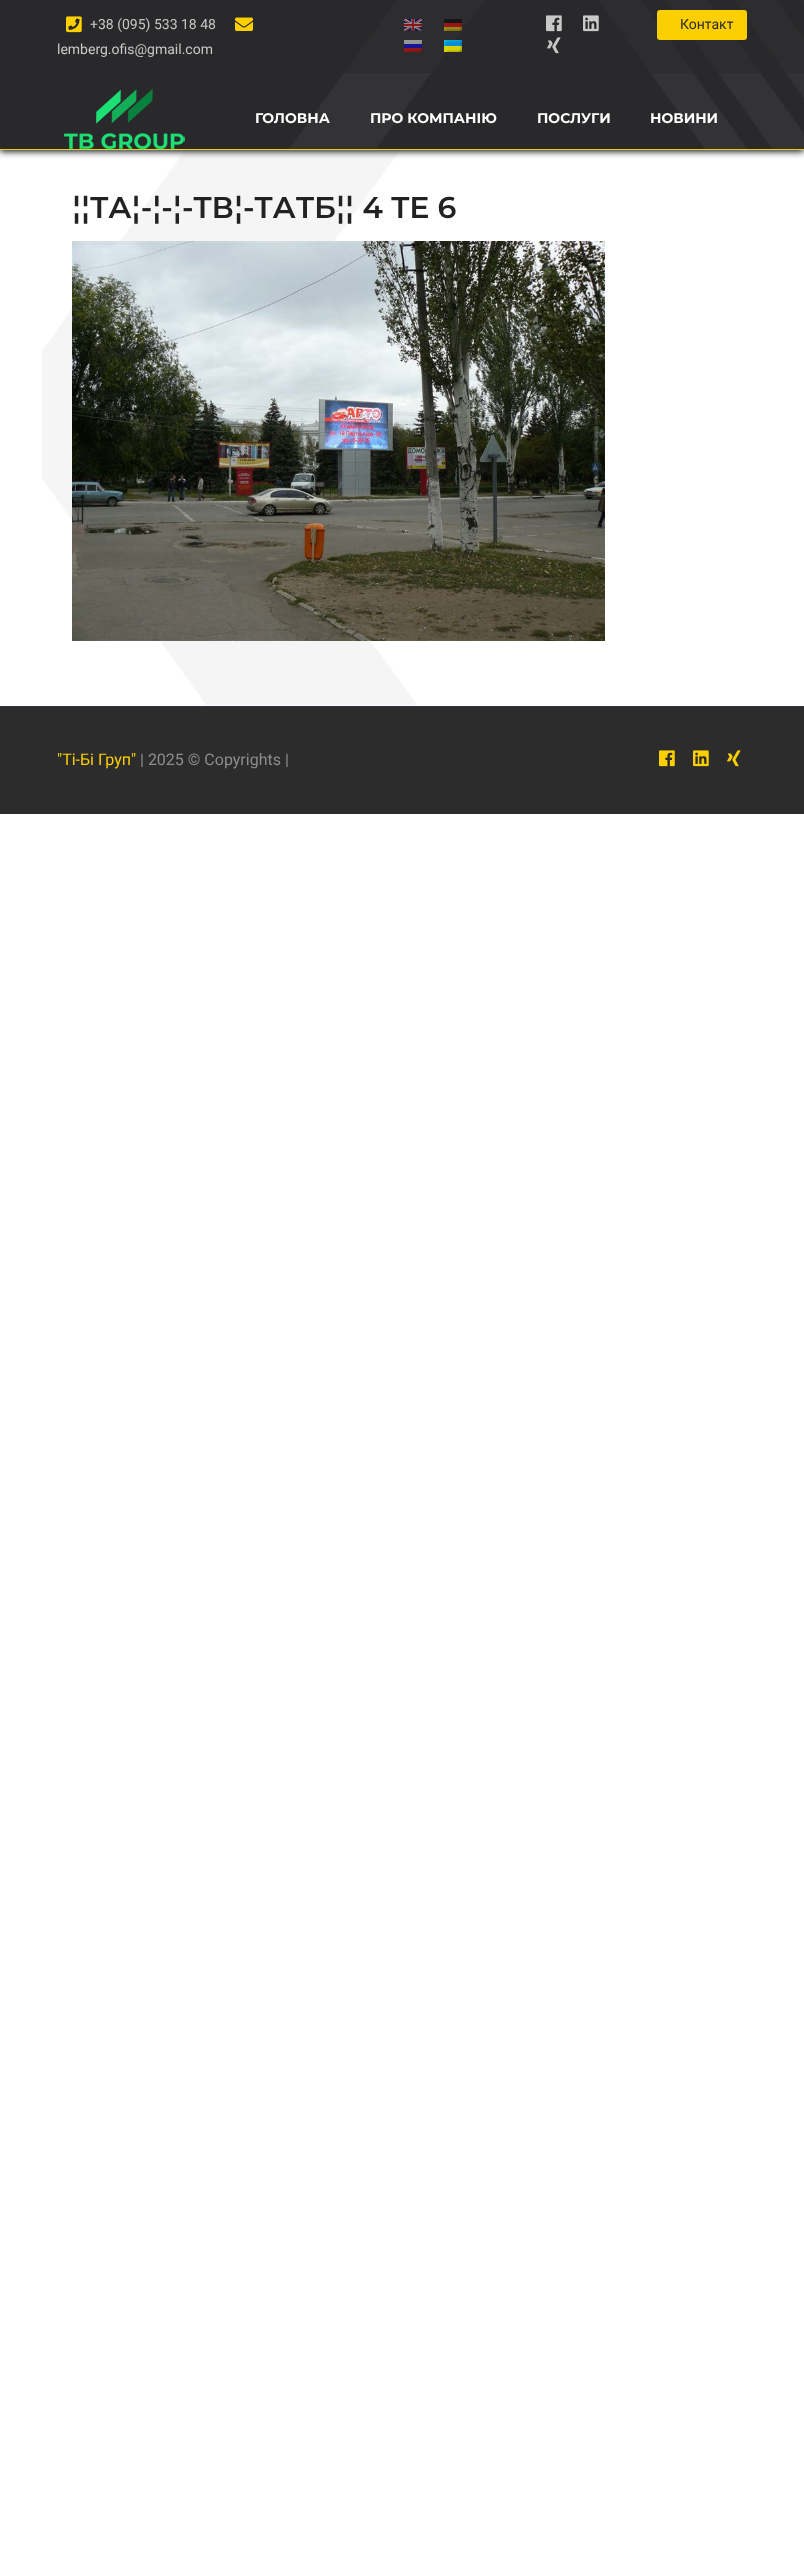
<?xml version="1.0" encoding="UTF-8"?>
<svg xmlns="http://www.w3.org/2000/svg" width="804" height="2562">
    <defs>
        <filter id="blur1" x="-50%" y="-200%" width="200%" height="500%"><feGaussianBlur stdDeviation="3"/></filter>
    </defs>
    <rect width="100%" height="100%" fill="#FFFFFF"/>
    <image x="42" y="150" width="375" height="556" href="img_12.png"/>
    <rect x="0" y="2" width="804" height="150" fill="#29292B" filter="url(#blur1)"/>
    <image x="0" y="0" width="804" height="149" href="img_11.png"/>
    <rect x="344" y="0" width="460" height="73" fill="#29292B" fill-opacity="0.6"/>
    <image x="66" y="16" width="16" height="17" href="img_01.png"/>
    <text x="90" y="29" font-family="Roboto" font-size="14" fill="#C8C8C8">+38 (095) 533 18 48</text>
    <image x="235" y="17" width="18" height="14" href="img_02.png"/>
    <text x="57" y="54" font-family="Roboto" font-size="14" fill="#C8C8C8">lemberg.ofis@gmail.com</text>
    <image x="404" y="19" width="18" height="12" href="img_03.png"/>
    <image x="444" y="19" width="18" height="12" href="img_04.png"/>
    <image x="404" y="40" width="18" height="12" href="img_05.png"/>
    <image x="444" y="40" width="18" height="12" href="img_06.png"/>
    <image x="546" y="15" width="16" height="17" href="img_07.png"/>
    <image x="583" y="15" width="16" height="17" href="img_08.png"/>
    <image x="547" y="37" width="14" height="17" href="img_09.png"/>
    <rect x="657" y="10" width="90" height="30" rx="3" fill="#FBCF00"/>
    <text x="680" y="29" font-family="Roboto" font-size="14" fill="#29292B">Контакт</text>
    <rect x="0" y="149" width="804" height="1" fill="#FBCF00"/>
    <image x="64" y="88" width="121" height="62" href="img_10.png"/>
    <text x="255" y="123" font-family="Montserrat" font-size="14" font-weight="700" fill="#FFFFFF">ГОЛОВНА</text>
    <text x="370" y="123" font-family="Montserrat" font-size="14" font-weight="700" fill="#FFFFFF">ПРО КОМПАНІЮ</text>
    <text x="537" y="123" font-family="Montserrat" font-size="14" font-weight="700" fill="#FFFFFF">ПОСЛУГИ</text>
    <text x="650" y="123" font-family="Montserrat" font-size="14" font-weight="700" fill="#FFFFFF">НОВИНИ</text>
    <text x="72" y="218" font-family="Montserrat" font-size="30" font-weight="600" fill="#222222">¦¦TА¦-¦-¦-TВ¦-TАTБ¦¦ 4 TЕ 6</text>
    <image x="72" y="241" width="533" height="400" href="img_13.png"/>
    <rect x="0" y="707" width="804" height="107" fill="#2C2C2C"/>
    <rect x="0" y="706" width="804" height="1" fill="#313646"/>
    <text x="57" y="765" font-family="Roboto" font-size="16" fill="#FBCF00">"Ті-Бі Груп"</text>
    <text x="140" y="765" font-family="Roboto" font-size="16" fill="#8D8D8D">| 2025 © Copyrights |</text>
    <image x="659" y="750" width="16" height="17" href="img_14.png"/>
    <image x="693" y="750" width="16" height="17" href="img_15.png"/>
    <image x="727" y="750" width="14" height="17" href="img_16.png"/>
</svg>
